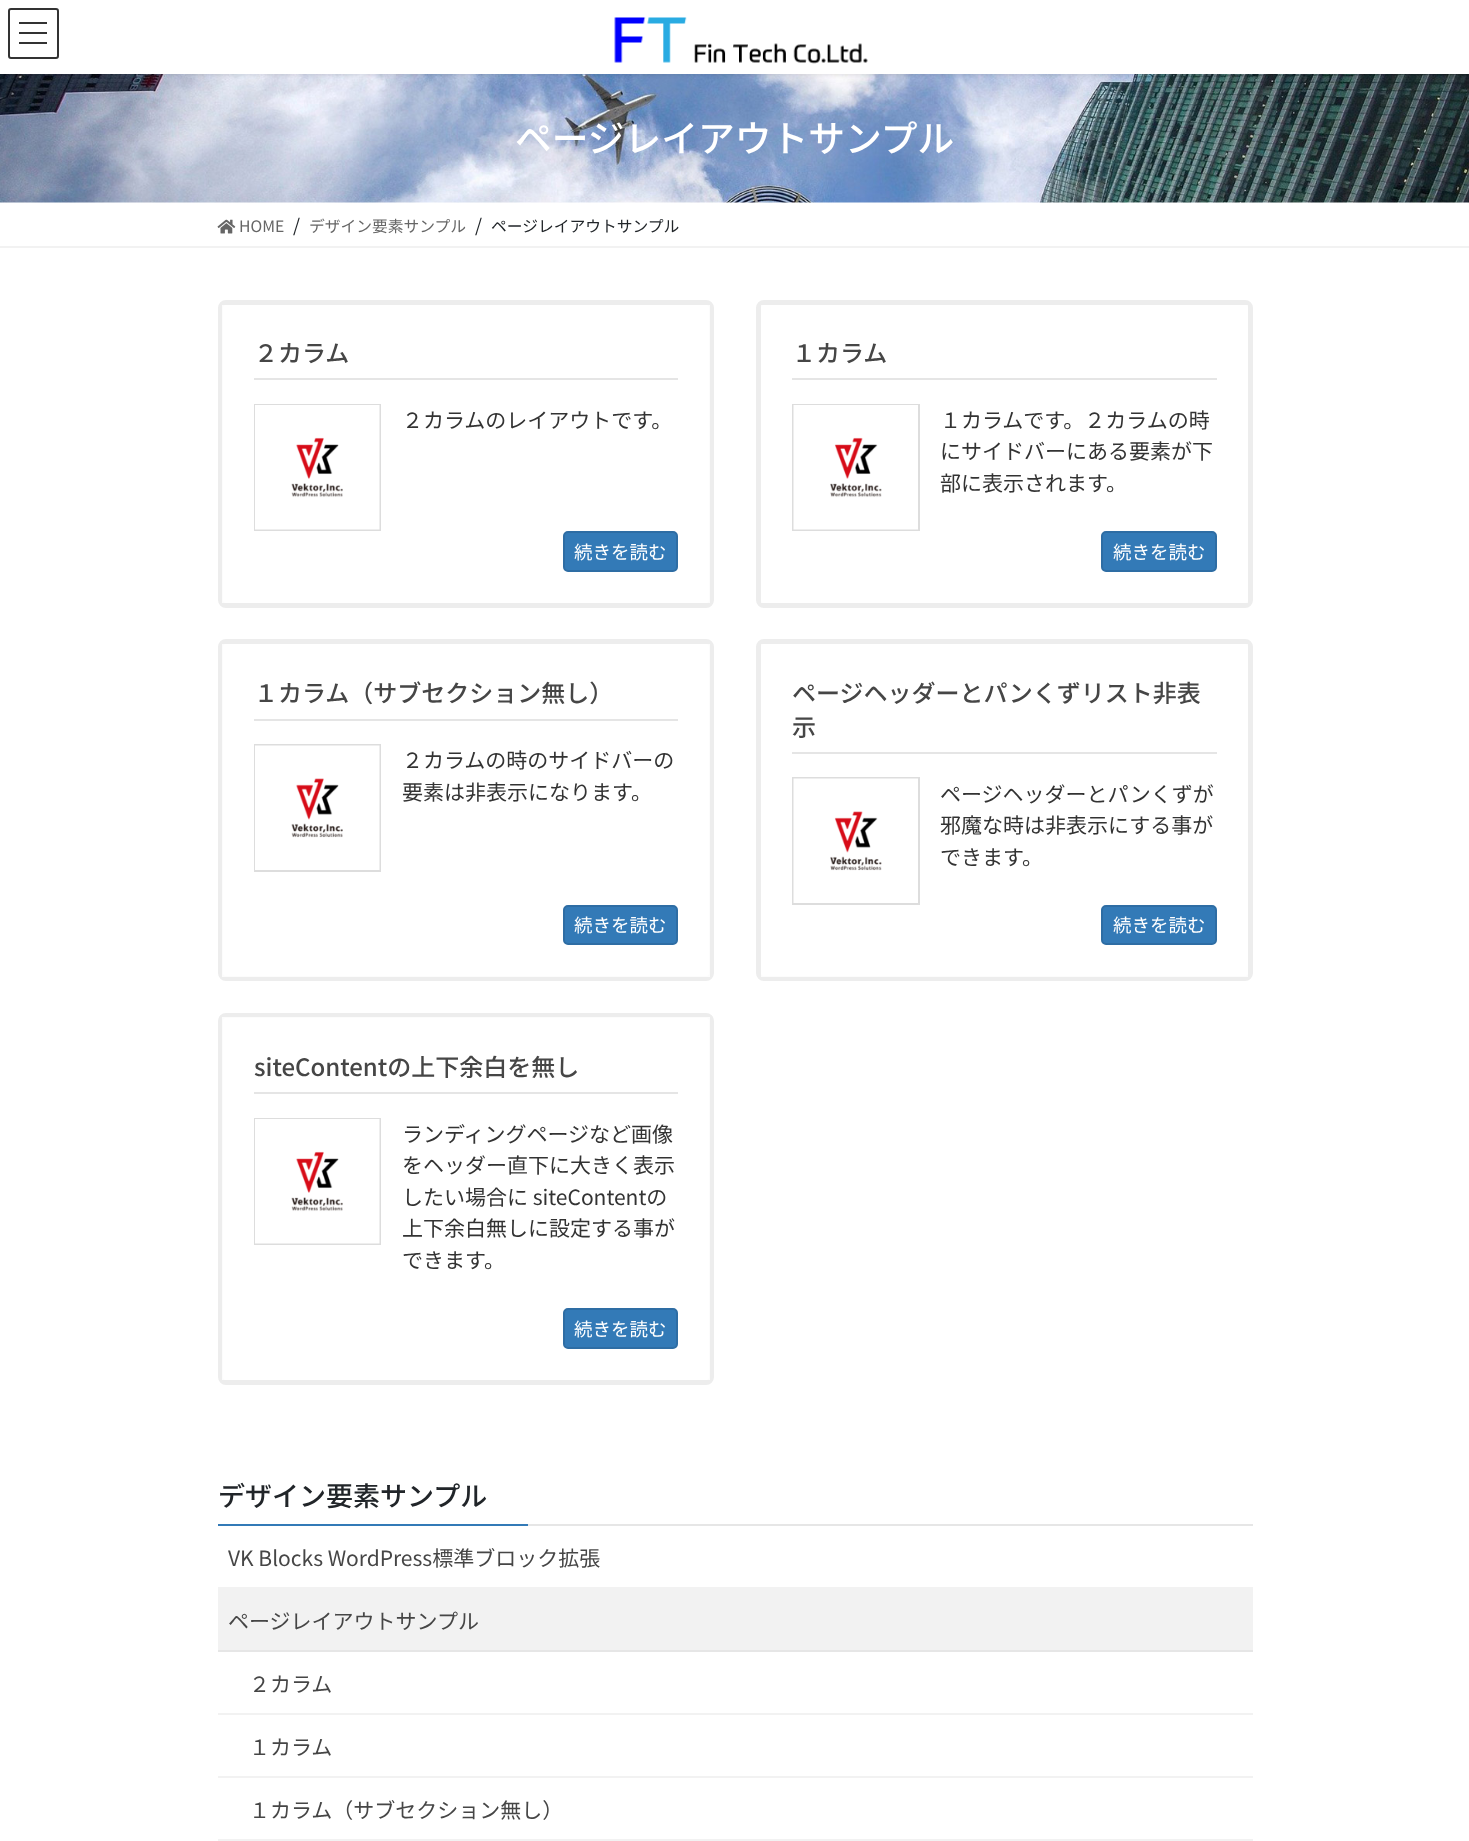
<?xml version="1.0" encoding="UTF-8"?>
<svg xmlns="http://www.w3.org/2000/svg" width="1469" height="1841">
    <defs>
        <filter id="blur1" x="-50%" y="-200%" width="200%" height="500%"><feGaussianBlur stdDeviation="2"/></filter>
    </defs>
    <rect width="100%" height="100%" fill="#FFFFFF"/>
    <image x="0" y="74" width="1469" height="129" href="img_02.png"/>
    <rect x="0" y="2" width="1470" height="73" fill="#000000" fill-opacity="0.1" filter="url(#blur1)"/>
    <rect x="0" y="0" width="1469" height="74" fill="#FFFFFF"/>
    <image x="614" y="17" width="254" height="47" href="img_01.png"/>
    <rect x="19" y="22" width="28" height="2" fill="#333333"/>
    <rect x="19" y="32" width="28" height="2" fill="#333333"/>
    <rect x="19" y="42" width="28" height="2" fill="#333333"/>
    <rect x="9" y="9" width="49" height="49" rx="2" fill="none" stroke="#333333" stroke-width="2"/>
    <text x="515" y="152" font-family="Noto Sans JP" font-size="36.75" font-weight="500" fill="#FFFFFF">ページレイアウトサンプル</text>
    <rect x="0" y="246" width="1469" height="2" fill="#F2F2F2"/>
    <image x="217" y="219" width="19" height="15" href="img_03.png"/>
    <text x="239" y="232" font-family="Noto Sans JP" font-size="15.75" fill="#666666">HOME</text>
    <text x="293" y="232" font-family="Noto Sans JP" font-size="18" fill="#212529">/</text>
    <text x="309" y="232" font-family="Noto Sans JP" font-size="15.75" fill="#666666">デザイン要素サンプル</text>
    <text x="475" y="232" font-family="Noto Sans JP" font-size="18" fill="#212529">/</text>
    <text x="491" y="232" font-family="Noto Sans JP" font-size="15.75" fill="#212529">ページレイアウトサンプル</text>
    <rect x="220.5" y="302.5" width="491" height="303" rx="5.5" fill="none" stroke="#EDEDED" stroke-width="5"/>
    <rect x="223" y="306" width="486" height="296" fill="none" stroke="#FFFFFF" stroke-opacity="0.8" stroke-width="2"/>
    <rect x="254" y="378" width="424" height="2" fill="#E5E5E5"/>
    <text x="254" y="362" font-family="Noto Sans JP" font-size="24" font-weight="500" fill="#464646">２カラム</text>
    <rect x="255" y="405" width="125" height="125" fill="none" stroke="#DDDDDD" stroke-width="2"/>
    <image x="255" y="405" width="125" height="125" href="img_04.png"/>
    <text x="402" y="428" font-family="Noto Sans JP" font-size="21" fill="#333333">２カラムのレイアウトです。</text>
    <rect x="564" y="532" width="113" height="39" rx="4" fill="#337AB7" stroke="#2E6DA4" stroke-width="2"/>
    <text x="574" y="559" font-family="Noto Sans JP" font-size="18.5" fill="#FFFFFF">続きを読む</text>
    <rect x="758.5" y="302.5" width="492" height="303" rx="5.5" fill="none" stroke="#EDEDED" stroke-width="5"/>
    <rect x="762" y="306" width="485" height="296" fill="none" stroke="#FFFFFF" stroke-opacity="0.8" stroke-width="2"/>
    <rect x="792" y="378" width="425" height="2" fill="#E5E5E5"/>
    <text x="792" y="362" font-family="Noto Sans JP" font-size="24" font-weight="500" fill="#464646">１カラム</text>
    <rect x="793" y="405" width="126" height="125" fill="none" stroke="#DDDDDD" stroke-width="2"/>
    <image x="793" y="405" width="125" height="125" href="img_05.png"/>
    <text font-family="Noto Sans JP" font-size="21" fill="#333333">
        <tspan x="940" y="428">１カラムです。２カラムの時</tspan>
        <tspan x="940" y="459">にサイドバーにある要素が下</tspan>
        <tspan x="940" y="491">部に表示されます。</tspan>
    </text>
    <rect x="1102" y="532" width="114" height="39" rx="4" fill="#337AB7" stroke="#2E6DA4" stroke-width="2"/>
    <text x="1113" y="559" font-family="Noto Sans JP" font-size="18.5" fill="#FFFFFF">続きを読む</text>
    <rect x="220.5" y="641.5" width="491" height="337" rx="5.5" fill="none" stroke="#EDEDED" stroke-width="5"/>
    <rect x="223" y="645" width="486" height="331" fill="none" stroke="#FFFFFF" stroke-opacity="0.8" stroke-width="2"/>
    <rect x="254" y="719" width="424" height="2" fill="#E5E5E5"/>
    <text x="254" y="702" font-family="Noto Sans JP" font-size="24" font-weight="500" fill="#464646">１カラム（サブセクション無し）</text>
    <rect x="255" y="745" width="125" height="126" fill="none" stroke="#DDDDDD" stroke-width="2"/>
    <image x="255" y="745" width="125" height="125" href="img_06.png"/>
    <text font-family="Noto Sans JP" font-size="21" fill="#333333">
        <tspan x="402" y="768">２カラムの時のサイドバーの</tspan>
        <tspan x="402" y="800">要素は非表示になります。</tspan>
    </text>
    <rect x="564" y="906" width="113" height="38" rx="4" fill="#337AB7" stroke="#2E6DA4" stroke-width="2"/>
    <text x="574" y="932" font-family="Noto Sans JP" font-size="18.5" fill="#FFFFFF">続きを読む</text>
    <rect x="758.5" y="641.5" width="492" height="337" rx="5.5" fill="none" stroke="#EDEDED" stroke-width="5"/>
    <rect x="762" y="645" width="485" height="331" fill="none" stroke="#FFFFFF" stroke-opacity="0.8" stroke-width="2"/>
    <rect x="792" y="752" width="425" height="2" fill="#E5E5E5"/>
    <text font-family="Noto Sans JP" font-size="24" font-weight="500" fill="#464646">
        <tspan x="792" y="702">ページヘッダーとパンくずリスト非表</tspan>
        <tspan x="792" y="736">示</tspan>
    </text>
    <rect x="793" y="778" width="126" height="126" fill="none" stroke="#DDDDDD" stroke-width="2"/>
    <image x="793" y="778" width="125" height="125" href="img_07.png"/>
    <text font-family="Noto Sans JP" font-size="21" fill="#333333">
        <tspan x="940" y="802">ページヘッダーとパンくずが</tspan>
        <tspan x="940" y="833">邪魔な時は非表示にする事が</tspan>
        <tspan x="940" y="865">できます。</tspan>
    </text>
    <rect x="1102" y="906" width="114" height="38" rx="4" fill="#337AB7" stroke="#2E6DA4" stroke-width="2"/>
    <text x="1113" y="932" font-family="Noto Sans JP" font-size="18.5" fill="#FFFFFF">続きを読む</text>
    <rect x="220.5" y="1015.5" width="491" height="367" rx="5.5" fill="none" stroke="#EDEDED" stroke-width="5"/>
    <rect x="223" y="1018" width="486" height="361" fill="none" stroke="#FFFFFF" stroke-opacity="0.8" stroke-width="2"/>
    <rect x="254" y="1092" width="424" height="2" fill="#E5E5E5"/>
    <text x="254" y="1076" font-family="Noto Sans JP" font-size="24" font-weight="500" fill="#464646">siteContentの上下余白を無し</text>
    <rect x="255" y="1119" width="125" height="125" fill="none" stroke="#DDDDDD" stroke-width="2"/>
    <image x="255" y="1119" width="125" height="125" href="img_04.png"/>
    <text font-family="Noto Sans JP" font-size="21" fill="#333333">
        <tspan x="402" y="1142">ランディングページなど画像</tspan>
        <tspan x="402" y="1173">をヘッダー直下に大きく表示</tspan>
        <tspan x="402" y="1205">したい場合に siteContentの</tspan>
        <tspan x="402" y="1236">上下余白無しに設定する事が</tspan>
        <tspan x="402" y="1268">できます。</tspan>
    </text>
    <rect x="564" y="1309" width="113" height="39" rx="4" fill="#337AB7" stroke="#2E6DA4" stroke-width="2"/>
    <text x="574" y="1336" font-family="Noto Sans JP" font-size="18.5" fill="#FFFFFF">続きを読む</text>
    <rect x="528" y="1524" width="725" height="2" fill="#E6E6E6"/>
    <text x="218" y="1506" font-family="Noto Sans JP" font-size="27" font-weight="500" fill="#212529">デザイン要素サンプル</text>
    <rect x="218" y="1524" width="310" height="2" fill="#337AB7"/>
    <rect x="218" y="1587" width="1035" height="63" fill="#F2F2F2"/>
    <text x="228" y="1566" font-family="Noto Sans JP" font-size="21" fill="#464646">VK Blocks WordPress標準ブロック拡張</text>
    <rect x="218" y="1650" width="1035" height="2" fill="#E6E6E6"/>
    <text x="228" y="1629" font-family="Noto Sans JP" font-size="21" fill="#464646">ページレイアウトサンプル</text>
    <rect x="218" y="1713" width="1035" height="2" fill="#F2F2F2"/>
    <text x="249" y="1692" font-family="Noto Sans JP" font-size="21" fill="#464646">２カラム</text>
    <rect x="218" y="1776" width="1035" height="2" fill="#F2F2F2"/>
    <text x="249" y="1755" font-family="Noto Sans JP" font-size="21" fill="#464646">１カラム</text>
    <rect x="218" y="1839" width="1035" height="2" fill="#F2F2F2"/>
    <text x="249" y="1818" font-family="Noto Sans JP" font-size="21" fill="#464646">１カラム（サブセクション無し）</text>
</svg>
